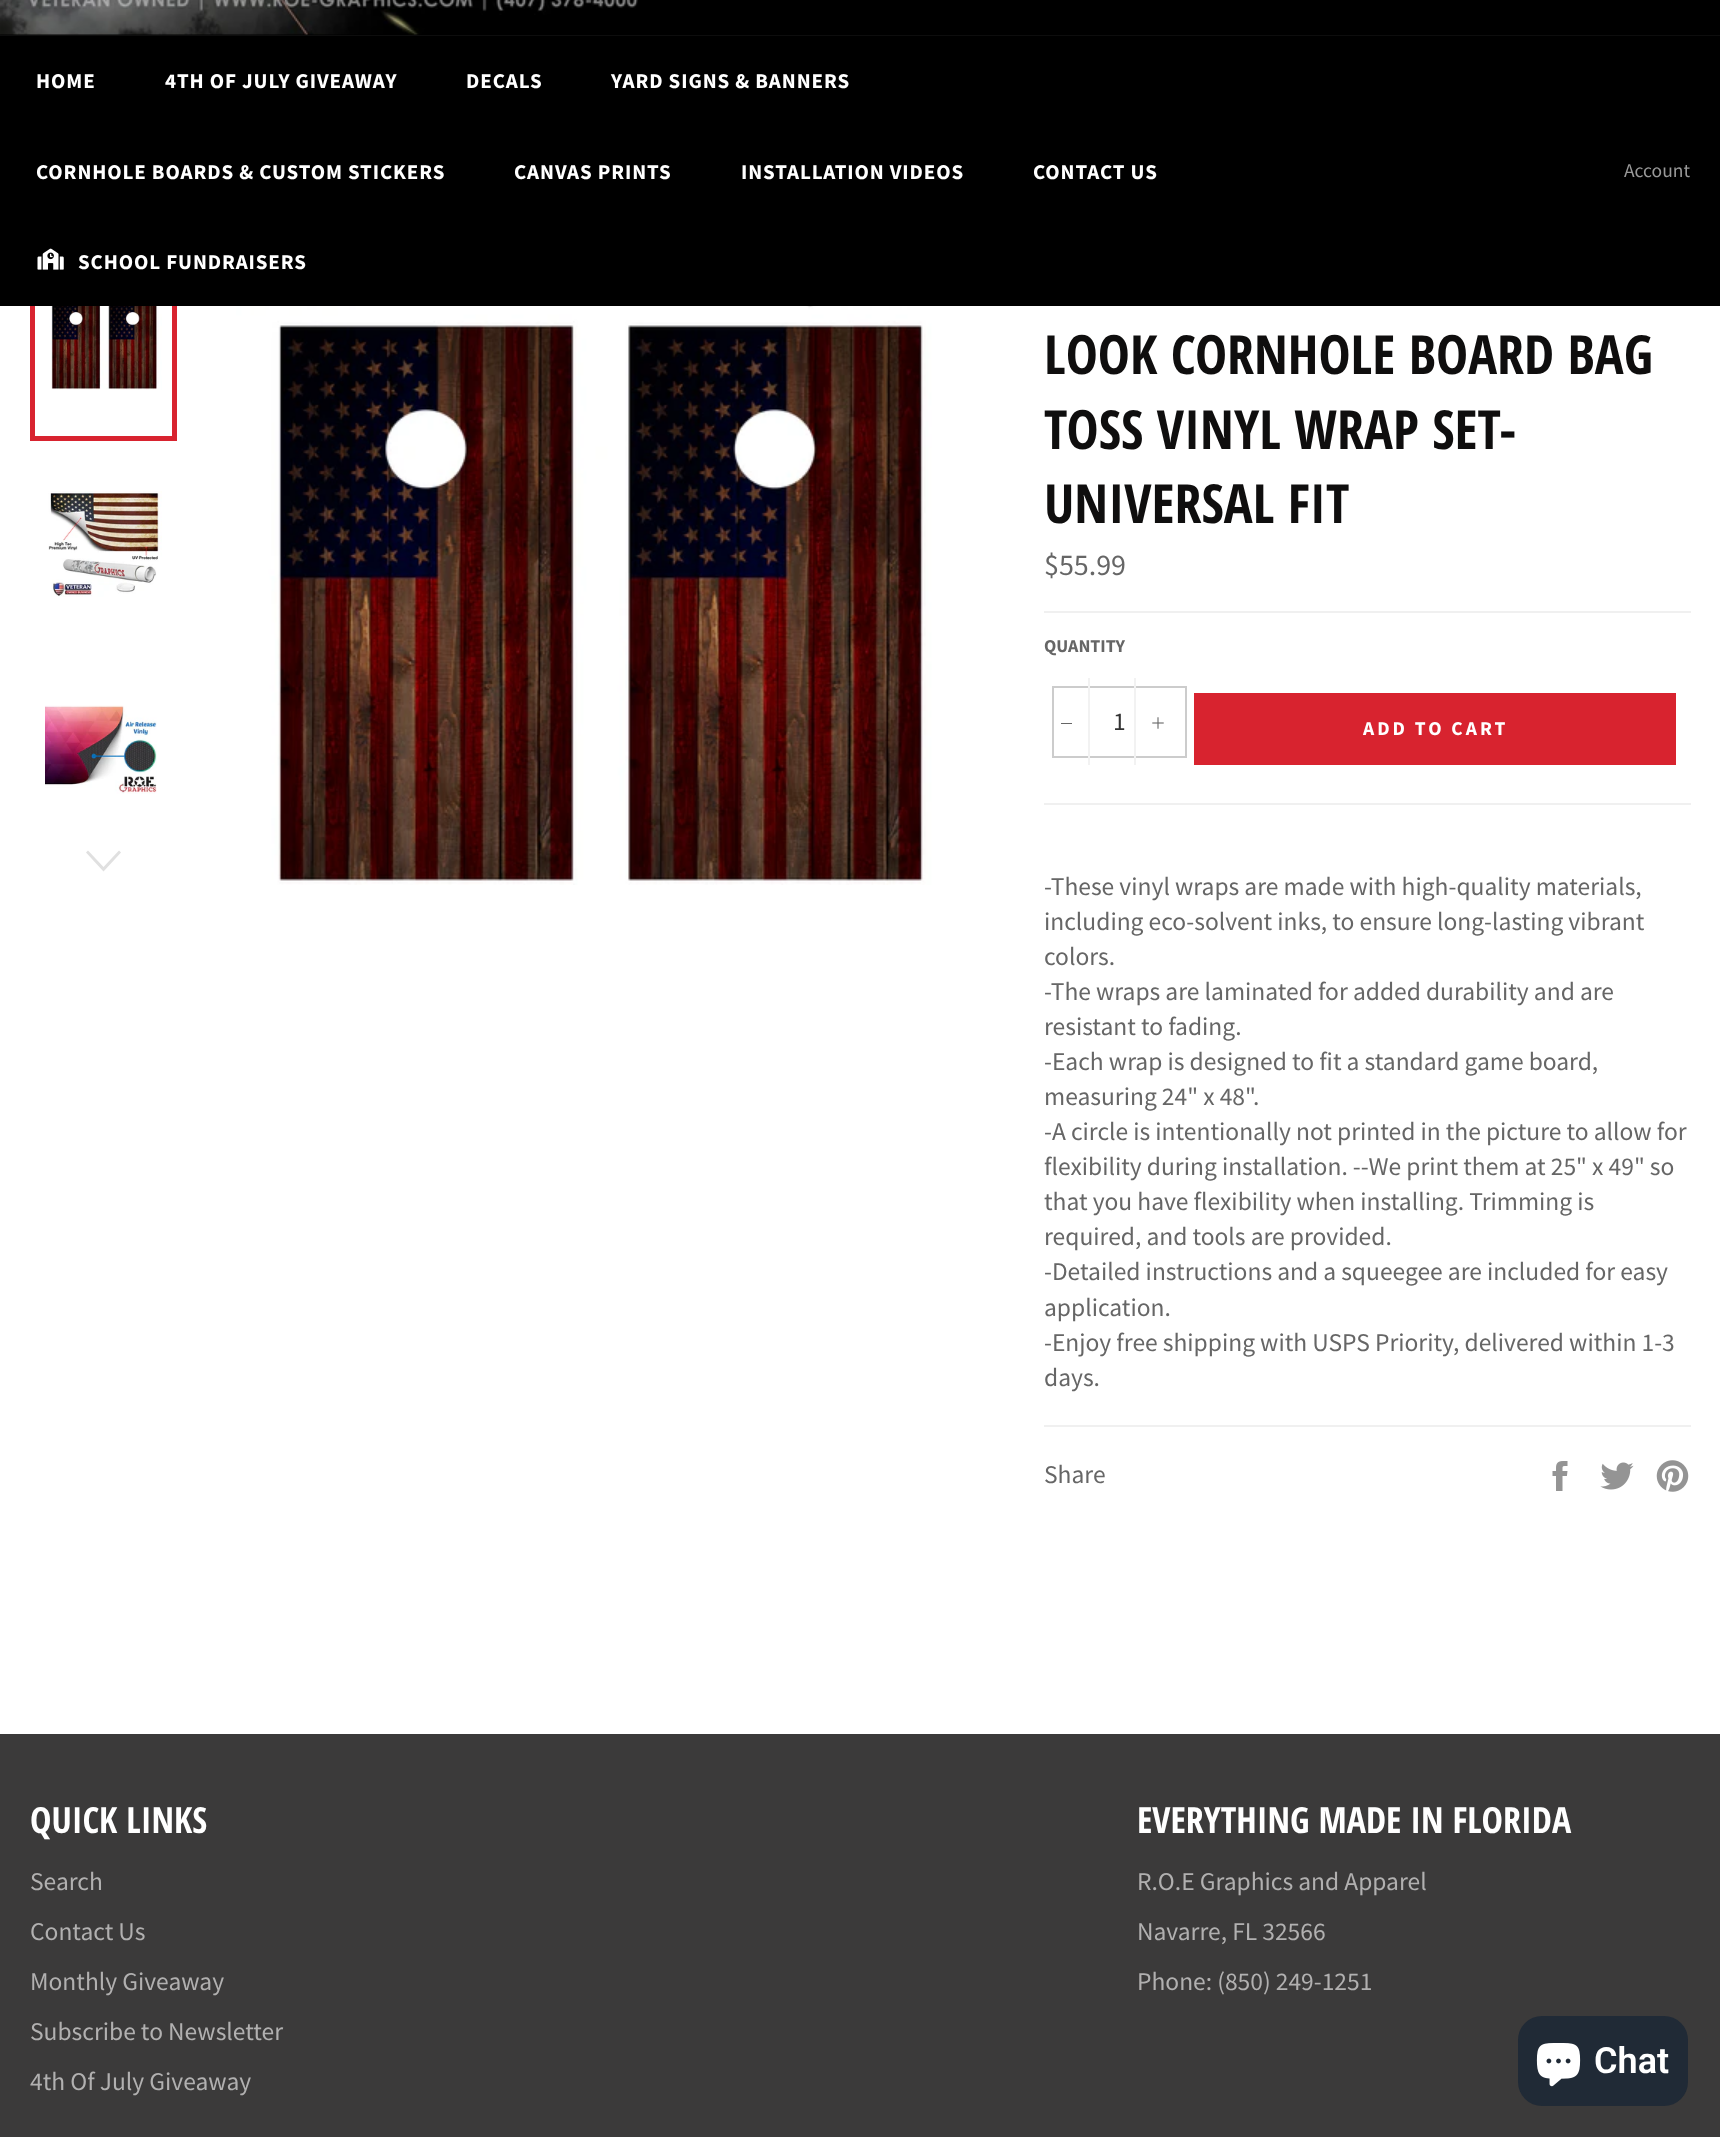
<?xml version="1.0" encoding="UTF-8"?>
<svg xmlns="http://www.w3.org/2000/svg" width="1720" height="2137">
    <rect width="100%" height="100%" fill="#000000"/>
    <image x="0" y="0" width="638" height="35" href="img_01.png"/>
    <rect x="0" y="35" width="1720" height="1" fill="#0D0D0D"/>
    <text x="36" y="88" font-family="Source Sans Pro" font-size="21" font-weight="700" letter-spacing="0.9" fill="#FFFFFF">HOME</text>
    <text x="165" y="88" font-family="Source Sans Pro" font-size="21" font-weight="700" letter-spacing="0.9" fill="#FFFFFF">4TH OF JULY GIVEAWAY</text>
    <text x="466" y="88" font-family="Source Sans Pro" font-size="21" font-weight="700" letter-spacing="0.9" fill="#FFFFFF">DECALS</text>
    <text x="611" y="88" font-family="Source Sans Pro" font-size="21" font-weight="700" letter-spacing="0.9" fill="#FFFFFF">YARD SIGNS &amp; BANNERS</text>
    <text x="36" y="179" font-family="Source Sans Pro" font-size="21" font-weight="700" letter-spacing="0.9" fill="#FFFFFF">CORNHOLE BOARDS &amp; CUSTOM STICKERS</text>
    <text x="514" y="179" font-family="Source Sans Pro" font-size="21" font-weight="700" letter-spacing="0.9" fill="#FFFFFF">CANVAS PRINTS</text>
    <text x="741" y="179" font-family="Source Sans Pro" font-size="21" font-weight="700" letter-spacing="0.9" fill="#FFFFFF">INSTALLATION VIDEOS</text>
    <text x="1033" y="179" font-family="Source Sans Pro" font-size="21" font-weight="700" letter-spacing="0.9" fill="#FFFFFF">CONTACT US</text>
    <rect x="0" y="306" width="1720" height="1428" fill="#FFFFFF"/>
    <image x="45" y="306" width="117" height="84" href="img_03.png"/>
    <rect x="32.5" y="248.5" width="142" height="190" fill="none" stroke="#D8232F" stroke-width="5"/>
    <rect x="30" y="246" width="147" height="60" fill="#000000"/>
    <image x="37" y="248" width="27" height="22" href="img_02.png"/>
    <text x="78" y="269" font-family="Source Sans Pro" font-size="21" font-weight="700" letter-spacing="0.9" fill="#FFFFFF">SCHOOL FUNDRAISERS</text>
    <text x="1624" y="177" font-family="Source Sans Pro" font-size="19.5" fill="#999999">Account</text>
    <image x="48" y="491" width="114" height="106" href="img_04.png"/>
    <image x="45" y="705" width="112" height="89" href="img_05.png"/>
    <path d="M 119 850.5 L 121 852.5 L 103.5 871.5 L 86 852.5 L 88 850.5 L 103.5 867 Z" fill="#E0E0E0"/>
    <image x="236" y="306" width="711" height="579" href="img_06.png"/>
    <text font-family="Open Sans Condensed" font-size="54" font-weight="700" fill="#0F0E0E">
        <tspan x="1044" y="374">LOOK CORNHOLE BOARD BAG</tspan>
        <tspan x="1044" y="449">TOSS VINYL WRAP SET-</tspan>
        <tspan x="1044" y="523">UNIVERSAL FIT</tspan>
    </text>
    <text x="1044" y="575" font-family="Source Sans Pro" font-size="30" fill="#666666">$55.99</text>
    <rect x="1044" y="611" width="647" height="2" fill="#F0F0F0"/>
    <text x="1044" y="652" font-family="Source Sans Pro" font-size="18" font-weight="700" fill="#666666">QUANTITY</text>
    <rect x="1053" y="687" width="133" height="70" fill="none" stroke="#CCCCCC" stroke-width="2"/>
    <rect x="1088" y="678" width="2" height="87" fill="#F2F2F2"/>
    <rect x="1061" y="723" width="11" height="1" fill="#666666"/>
    <text x="1113" y="730" font-family="Source Sans Pro" font-size="25.5" fill="#333333">1</text>
    <rect x="1134" y="678" width="2" height="87" fill="#F2F2F2"/>
    <image x="1152" y="717" width="12" height="12" href="img_07.png"/>
    <rect x="1194" y="693" width="482" height="72" fill="#D8232F"/>
    <text x="1363" y="735" font-family="Source Sans Pro" font-size="19.5" font-weight="700" letter-spacing="3" fill="#FFFFFF">ADD TO CART</text>
    <rect x="1044" y="803" width="647" height="2" fill="#F0F0F0"/>
    <text font-family="Source Sans Pro" font-size="25.5" fill="#666666">
        <tspan x="1044" y="895">-These vinyl wraps are made with high-quality materials,</tspan>
        <tspan x="1044" y="930">including eco-solvent inks, to ensure long-lasting vibrant</tspan>
        <tspan x="1044" y="965">colors.</tspan>
        <tspan x="1044" y="1000">-The wraps are laminated for added durability and are</tspan>
        <tspan x="1044" y="1035">resistant to fading.</tspan>
        <tspan x="1044" y="1070">-Each wrap is designed to fit a standard game board,</tspan>
        <tspan x="1044" y="1105">measuring 24" x 48".</tspan>
        <tspan x="1044" y="1140">-A circle is intentionally not printed in the picture to allow for</tspan>
        <tspan x="1044" y="1175">flexibility during installation. --We print them at 25" x 49" so</tspan>
        <tspan x="1044" y="1210">that you have flexibility when installing. Trimming is</tspan>
        <tspan x="1044" y="1245">required, and tools are provided.</tspan>
        <tspan x="1044" y="1280">-Detailed instructions and a squeegee are included for easy</tspan>
        <tspan x="1044" y="1316">application.</tspan>
        <tspan x="1044" y="1351">-Enjoy free shipping with USPS Priority, delivered within 1-3</tspan>
        <tspan x="1044" y="1386">days.</tspan>
    </text>
    <rect x="1044" y="1425" width="647" height="2" fill="#F0F0F0"/>
    <text x="1044" y="1483" font-family="Source Sans Pro" font-size="25.5" fill="#666666">Share</text>
    <image x="1552" y="1461" width="16" height="30" href="img_08.png"/>
    <image x="1600" y="1462" width="34" height="28" href="img_09.png"/>
    <image x="1656" y="1460" width="33" height="32" href="img_10.png"/>
    <rect x="0" y="1734" width="1720" height="403" fill="#3B3A3A"/>
    <text x="30" y="1833" font-family="Open Sans Condensed" font-size="36" font-weight="700" fill="#FFFFFF">QUICK LINKS</text>
    <text font-family="Source Sans Pro" font-size="25.5" fill="#B1B0B0">
        <tspan x="30" y="1890">Search</tspan>
        <tspan x="30" y="1940">Contact Us</tspan>
        <tspan x="30" y="1990">Monthly Giveaway</tspan>
        <tspan x="30" y="2040">Subscribe to Newsletter</tspan>
        <tspan x="30" y="2090">4th Of July Giveaway</tspan>
    </text>
    <text x="1137" y="1833" font-family="Open Sans Condensed" font-size="36" font-weight="700" fill="#FFFFFF">EVERYTHING MADE IN FLORIDA</text>
    <text font-family="Source Sans Pro" font-size="25.5" fill="#B1B0B0">
        <tspan x="1137" y="1890">R.O.E Graphics and Apparel</tspan>
        <tspan x="1137" y="1940">Navarre, FL 32566</tspan>
        <tspan x="1137" y="1990">Phone: (850) 249-1251</tspan>
    </text>
    <rect x="1518" y="2016" width="170" height="90" rx="24" fill="#202A36"/>
    <image x="1536" y="2043" width="45" height="44" href="img_11.png"/>
    <text x="1594" y="2073" font-family="Roboto" font-size="36" font-weight="600" fill="#FFFFFF">Chat</text>
</svg>
